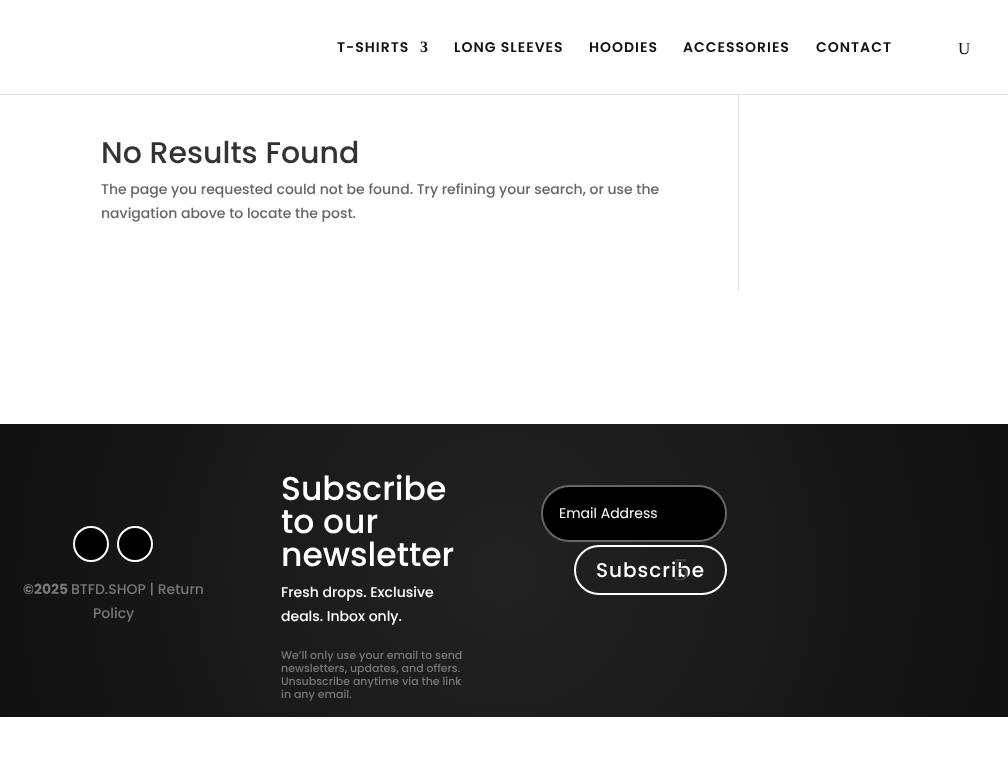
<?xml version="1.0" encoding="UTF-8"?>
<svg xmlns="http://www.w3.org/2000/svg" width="1008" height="784">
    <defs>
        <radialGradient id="g1" gradientUnits="userSpaceOnUse" cx="504" cy="571" r="525"><stop offset="0" stop-color="#222222"/><stop offset="1" stop-color="#111111"/></radialGradient>
    </defs>
    <rect width="100%" height="100%" fill="#FFFFFF"/>
    <rect x="0" y="94" width="1008" height="1" fill="#E6E6E6"/>
    <text x="337" y="52" font-family="Poppins" font-size="14" font-weight="600" letter-spacing="1" fill="#111111">T-SHIRTS</text>
    <text x="420" y="52" font-family="Liberation Serif" font-size="16" font-weight="700" letter-spacing="1" fill="#111111">3</text>
    <text x="454" y="52" font-family="Poppins" font-size="14" font-weight="600" letter-spacing="1" fill="#111111">LONG SLEEVES</text>
    <text x="589" y="52" font-family="Poppins" font-size="14" font-weight="600" letter-spacing="1" fill="#111111">HOODIES</text>
    <text x="683" y="52" font-family="Poppins" font-size="14" font-weight="600" letter-spacing="1" fill="#111111">ACCESSORIES</text>
    <text x="816" y="52" font-family="Poppins" font-size="14" font-weight="600" letter-spacing="1" fill="#111111">CONTACT</text>
    <text x="958" y="54" font-family="Liberation Serif" font-size="17" fill="#111111">U</text>
    <text x="101" y="163" font-family="Poppins" font-size="30" font-weight="500" fill="#333333">No Results Found</text>
    <text font-family="Poppins" font-size="14" font-weight="500" fill="#666666">
        <tspan x="101" y="194">The page you requested could not be found. Try refining your search, or use the</tspan>
        <tspan x="101" y="218">navigation above to locate the post.</tspan>
    </text>
    <rect x="738" y="95" width="1" height="196" fill="#E2E2E2"/>
    <rect x="738" y="94" width="1" height="1" fill="#CBCBCB"/>
    <rect x="0" y="424" width="1008" height="293" fill="url(#g1)"/>
    <text font-family="Poppins" font-size="33" font-weight="500" fill="#FFFFFF">
        <tspan x="281" y="500">Subscribe</tspan>
        <tspan x="281" y="533">to our</tspan>
        <tspan x="281" y="566">newsletter</tspan>
    </text>
    <text font-family="Poppins" font-size="14" font-weight="500" fill="#FFFFFF">
        <tspan x="281" y="597">Fresh drops. Exclusive</tspan>
        <tspan x="281" y="621">deals. Inbox only.</tspan>
    </text>
    <text font-family="Poppins" font-size="11" font-weight="500" fill="#777777">
        <tspan x="281" y="659">We’ll only use your email to send</tspan>
        <tspan x="281" y="672">newsletters, updates, and offers.</tspan>
        <tspan x="281" y="685">Unsubscribe anytime via the link</tspan>
        <tspan x="281" y="698">in any email.</tspan>
    </text>
    <rect x="542" y="486" width="184" height="55" rx="27.5" fill="#000000" stroke="#666666" stroke-width="2"/>
    <text x="559" y="518" font-family="Poppins" font-size="14" fill="#FFFFFF">Email Address</text>
    <rect x="575" y="546" width="151" height="48" rx="24" fill="none" stroke="#FFFFFF" stroke-width="2"/>
    <text x="596" y="577" font-family="Poppins" font-size="20" font-weight="500" letter-spacing="1" fill="#FFFFFF">Subscribe</text>
    <text x="673" y="580" font-family="Liberation Serif" font-size="32" letter-spacing="1" fill="#3E3E3E">5</text>
    <circle cx="91" cy="544" r="17" fill="#000000" stroke="#FFFFFF" stroke-width="2"/>
    <circle cx="135" cy="544" r="17" fill="#000000" stroke="#FFFFFF" stroke-width="2"/>
    <text x="23" y="594" font-family="Poppins" font-size="14" font-weight="700" fill="#777777">©2025</text>
    <text x="71" y="594" font-family="Poppins" font-size="14" font-weight="500" fill="#777777">BTFD.SHOP | Return</text>
    <text x="93" y="618" font-family="Poppins" font-size="14" font-weight="500" fill="#777777">Policy</text>
</svg>
